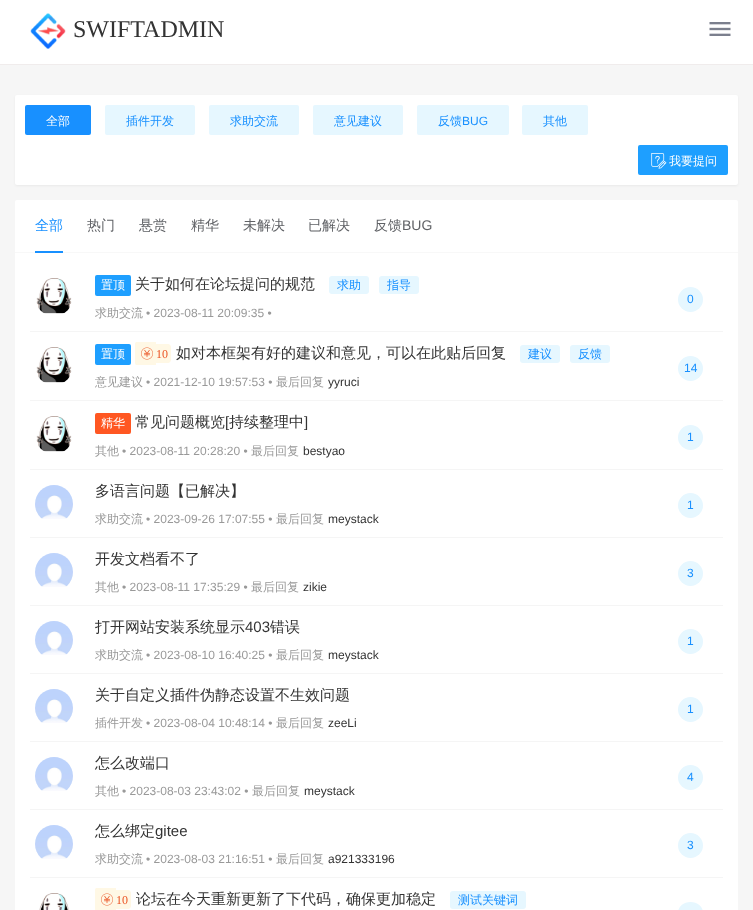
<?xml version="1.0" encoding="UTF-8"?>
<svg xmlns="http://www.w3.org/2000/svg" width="753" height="910">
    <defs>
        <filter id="blur1" x="-50%" y="-200%" width="200%" height="500%"><feGaussianBlur stdDeviation="1"/></filter>
        <clipPath id="clip1"><rect x="95" y="342" width="558" height="23"/></clipPath>
        <clipPath id="clip2"><rect x="95" y="888" width="558" height="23"/></clipPath>
    </defs>
    <rect width="100%" height="100%" fill="#F6F6F6"/>
    <rect x="0" y="0" width="753" height="64" fill="#FFFFFF"/>
    <rect x="0" y="64" width="753" height="1" fill="#F0ECEC"/>
    <image x="30" y="13" width="36" height="36" href="img_01.png"/>
    <text x="73" y="37" font-family="Liberation Serif" font-size="24" fill="#333333">SWIFTADMIN</text>
    <image x="709" y="22" width="22" height="14" href="img_02.png"/>
    <rect x="15" y="96" width="723" height="90" rx="2" fill="#000000" fill-opacity="0.05" filter="url(#blur1)"/>
    <rect x="15" y="95" width="723" height="90" rx="2" fill="#FFFFFF"/>
    <rect x="25" y="105" width="66" height="30" rx="2" fill="#1890FF"/>
    <text x="46" y="125" font-family="WenQuanYi Zen Hei" font-size="12" font-weight="500" fill="#FFFFFF">全部</text>
    <rect x="105" y="105" width="90" height="30" rx="2" fill="#E6F7FF"/>
    <text x="126" y="125" font-family="WenQuanYi Zen Hei" font-size="12" font-weight="500" fill="#1890FF">插件开发</text>
    <rect x="209" y="105" width="90" height="30" rx="2" fill="#E6F7FF"/>
    <text x="230" y="125" font-family="WenQuanYi Zen Hei" font-size="12" font-weight="500" fill="#1890FF">求助交流</text>
    <rect x="313" y="105" width="90" height="30" rx="2" fill="#E6F7FF"/>
    <text x="334" y="125" font-family="WenQuanYi Zen Hei" font-size="12" font-weight="500" fill="#1890FF">意见建议</text>
    <rect x="417" y="105" width="92" height="30" rx="2" fill="#E6F7FF"/>
    <text x="438" y="125" font-family="WenQuanYi Zen Hei" font-size="12" font-weight="500" fill="#1890FF">反馈</text>
    <text x="462" y="125" font-family="Liberation Sans" font-size="12" fill="#1890FF">BUG</text>
    <rect x="522" y="105" width="66" height="30" rx="2" fill="#E6F7FF"/>
    <text x="543" y="125" font-family="WenQuanYi Zen Hei" font-size="12" font-weight="500" fill="#1890FF">其他</text>
    <rect x="638" y="145" width="90" height="30" rx="2" fill="#1E9FFF"/>
    <image x="651" y="153" width="16" height="16" href="img_03.png"/>
    <text x="669" y="165" font-family="WenQuanYi Zen Hei" font-size="12" font-weight="500" fill="#FFFFFF">我要提问</text>
    <rect x="15" y="200" width="723" height="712" rx="2" fill="#FFFFFF"/>
    <rect x="15" y="252" width="723" height="1" fill="#F8F8F8"/>
    <rect x="35" y="251" width="28" height="2" fill="#1890FF"/>
    <text x="35" y="230" font-family="WenQuanYi Zen Hei" font-size="14" font-weight="500" fill="#1890FF">全部</text>
    <text x="87" y="230" font-family="WenQuanYi Zen Hei" font-size="14" font-weight="500" fill="#606266">热门</text>
    <text x="139" y="230" font-family="WenQuanYi Zen Hei" font-size="14" font-weight="500" fill="#606266">悬赏</text>
    <text x="191" y="230" font-family="WenQuanYi Zen Hei" font-size="14" font-weight="500" fill="#606266">精华</text>
    <text x="243" y="230" font-family="WenQuanYi Zen Hei" font-size="14" font-weight="500" fill="#606266">未解决</text>
    <text x="308" y="230" font-family="WenQuanYi Zen Hei" font-size="14" font-weight="500" fill="#606266">已解决</text>
    <text x="374" y="230" font-family="WenQuanYi Zen Hei" font-size="14" font-weight="500" fill="#606266">反馈</text>
    <text x="402" y="230" font-family="Liberation Sans" font-size="14" fill="#606266">BUG</text>
    <rect x="30" y="331" width="693" height="1" fill="#F5F5F5"/>
    <image x="36" y="278" width="36" height="36" href="img_04.png"/>
    <rect x="95" y="275" width="36" height="21" rx="2" fill="#1E9FFF"/>
    <text x="101" y="289" font-family="WenQuanYi Zen Hei" font-size="12" font-weight="500" fill="#FFFFFF">置顶</text>
    <text x="135" y="289" font-family="WenQuanYi Zen Hei" font-size="15" font-weight="500" fill="#333333">关于如何在论坛提问的规范</text>
    <rect x="329" y="276" width="40" height="18" rx="3" fill="#E6F7FF"/>
    <text x="337" y="289" font-family="WenQuanYi Zen Hei" font-size="12" font-weight="500" fill="#1890FF">求助</text>
    <rect x="379" y="276" width="40" height="18" rx="3" fill="#E6F7FF"/>
    <text x="387" y="289" font-family="WenQuanYi Zen Hei" font-size="12" font-weight="500" fill="#1890FF">指导</text>
    <circle cx="690.5" cy="299.5" r="12.5" fill="#E6F7FF"/>
    <text x="687" y="303" font-family="Liberation Sans" font-size="12" fill="#1890FF">0</text>
    <text x="95" y="317" font-family="WenQuanYi Zen Hei" font-size="12" font-weight="500" fill="#999999">求助交流</text>
    <text x="146" y="317" font-family="Liberation Sans" font-size="12" fill="#999999">• 2023-08-11 20:09:35 •</text>
    <rect x="30" y="400" width="693" height="1" fill="#F5F5F5"/>
    <image x="36" y="347" width="36" height="36" href="img_05.png"/>
    <rect x="95" y="344" width="36" height="21" rx="2" fill="#1E9FFF"/>
    <text x="101" y="358" font-family="WenQuanYi Zen Hei" font-size="12" font-weight="500" fill="#FFFFFF">置顶</text>
    <g clip-path="url(#clip1)">
        <path d="M 138 341 H 156 V 366 H 138 C 136.5 366 135 364.5 135 363 V 344 C 135 342.5 136.5 341 138 341 Z" fill="#FFF8E5"/>
    </g>
    <image x="141" y="347" width="12" height="13" href="img_06.png"/>
    <path d="M 156 344 H 168 C 169.5 344 171 345.5 171 347 V 360 C 171 361.5 169.5 363 168 363 H 156 Z" fill="#FFF8E5"/>
    <text x="156" y="358" font-family="Liberation Serif" font-size="12" fill="#EB5424">10</text>
    <text x="176" y="358" font-family="WenQuanYi Zen Hei" font-size="15" font-weight="500" fill="#333333">如对本框架有好的建议和意见，可以在此贴后回复</text>
    <rect x="520" y="345" width="40" height="18" rx="3" fill="#E6F7FF"/>
    <text x="528" y="358" font-family="WenQuanYi Zen Hei" font-size="12" font-weight="500" fill="#1890FF">建议</text>
    <rect x="570" y="345" width="40" height="18" rx="3" fill="#E6F7FF"/>
    <text x="578" y="358" font-family="WenQuanYi Zen Hei" font-size="12" font-weight="500" fill="#1890FF">反馈</text>
    <circle cx="690.5" cy="368.5" r="12.5" fill="#E6F7FF"/>
    <text x="684" y="372" font-family="Liberation Sans" font-size="12" fill="#1890FF">14</text>
    <text x="95" y="386" font-family="WenQuanYi Zen Hei" font-size="12" font-weight="500" fill="#999999">意见建议</text>
    <text x="146" y="386" font-family="Liberation Sans" font-size="12" fill="#999999">• 2021-12-10 19:57:53 •</text>
    <text x="276" y="386" font-family="WenQuanYi Zen Hei" font-size="12" font-weight="500" fill="#999999">最后回复</text>
    <text x="328" y="386" font-family="Liberation Sans" font-size="12" fill="#333333">yyruci</text>
    <rect x="30" y="469" width="693" height="1" fill="#F5F5F5"/>
    <image x="36" y="416" width="36" height="36" href="img_05.png"/>
    <rect x="95" y="413" width="36" height="21" rx="2" fill="#FF5722"/>
    <text x="101" y="427" font-family="WenQuanYi Zen Hei" font-size="12" font-weight="500" fill="#FFFFFF">精华</text>
    <text x="135" y="427" font-family="WenQuanYi Zen Hei" font-size="15" font-weight="500" fill="#333333">常见问题概览</text>
    <text x="225" y="427" font-family="Liberation Sans" font-size="15" fill="#333333">[</text>
    <text x="229" y="427" font-family="WenQuanYi Zen Hei" font-size="15" font-weight="500" fill="#333333">持续整理中</text>
    <text x="304" y="427" font-family="Liberation Sans" font-size="15" fill="#333333">]</text>
    <circle cx="690.5" cy="437.5" r="12.5" fill="#E6F7FF"/>
    <text x="687" y="441" font-family="Liberation Sans" font-size="12" fill="#1890FF">1</text>
    <text x="95" y="455" font-family="WenQuanYi Zen Hei" font-size="12" font-weight="500" fill="#999999">其他</text>
    <text x="122" y="455" font-family="Liberation Sans" font-size="12" fill="#999999">• 2023-08-11 20:28:20 •</text>
    <text x="251" y="455" font-family="WenQuanYi Zen Hei" font-size="12" font-weight="500" fill="#999999">最后回复</text>
    <text x="303" y="455" font-family="Liberation Sans" font-size="12" fill="#333333">bestyao</text>
    <rect x="30" y="537" width="693" height="1" fill="#F5F5F5"/>
    <image x="35" y="485" width="38" height="34" href="img_07.png"/>
    <text x="95" y="496" font-family="WenQuanYi Zen Hei" font-size="15" font-weight="500" fill="#333333">多语言问题【已解决】</text>
    <circle cx="690.5" cy="505.5" r="12.5" fill="#E6F7FF"/>
    <text x="687" y="509" font-family="Liberation Sans" font-size="12" fill="#1890FF">1</text>
    <text x="95" y="523" font-family="WenQuanYi Zen Hei" font-size="12" font-weight="500" fill="#999999">求助交流</text>
    <text x="146" y="523" font-family="Liberation Sans" font-size="12" fill="#999999">• 2023-09-26 17:07:55 •</text>
    <text x="276" y="523" font-family="WenQuanYi Zen Hei" font-size="12" font-weight="500" fill="#999999">最后回复</text>
    <text x="328" y="523" font-family="Liberation Sans" font-size="12" fill="#333333">meystack</text>
    <rect x="30" y="605" width="693" height="1" fill="#F5F5F5"/>
    <image x="35" y="553" width="38" height="34" href="img_08.png"/>
    <text x="95" y="564" font-family="WenQuanYi Zen Hei" font-size="15" font-weight="500" fill="#333333">开发文档看不了</text>
    <circle cx="690.5" cy="573.5" r="12.5" fill="#E6F7FF"/>
    <text x="687" y="577" font-family="Liberation Sans" font-size="12" fill="#1890FF">3</text>
    <text x="95" y="591" font-family="WenQuanYi Zen Hei" font-size="12" font-weight="500" fill="#999999">其他</text>
    <text x="122" y="591" font-family="Liberation Sans" font-size="12" fill="#999999">• 2023-08-11 17:35:29 •</text>
    <text x="251" y="591" font-family="WenQuanYi Zen Hei" font-size="12" font-weight="500" fill="#999999">最后回复</text>
    <text x="303" y="591" font-family="Liberation Sans" font-size="12" fill="#333333">zikie</text>
    <rect x="30" y="673" width="693" height="1" fill="#F5F5F5"/>
    <image x="35" y="621" width="38" height="34" href="img_08.png"/>
    <text x="95" y="632" font-family="WenQuanYi Zen Hei" font-size="15" font-weight="500" fill="#333333">打开网站安装系统显示</text>
    <text x="245" y="632" font-family="Liberation Sans" font-size="15" fill="#333333">403</text>
    <text x="270" y="632" font-family="WenQuanYi Zen Hei" font-size="15" font-weight="500" fill="#333333">错误</text>
    <circle cx="690.5" cy="641.5" r="12.5" fill="#E6F7FF"/>
    <text x="687" y="645" font-family="Liberation Sans" font-size="12" fill="#1890FF">1</text>
    <text x="95" y="659" font-family="WenQuanYi Zen Hei" font-size="12" font-weight="500" fill="#999999">求助交流</text>
    <text x="146" y="659" font-family="Liberation Sans" font-size="12" fill="#999999">• 2023-08-10 16:40:25 •</text>
    <text x="276" y="659" font-family="WenQuanYi Zen Hei" font-size="12" font-weight="500" fill="#999999">最后回复</text>
    <text x="328" y="659" font-family="Liberation Sans" font-size="12" fill="#333333">meystack</text>
    <rect x="30" y="741" width="693" height="1" fill="#F5F5F5"/>
    <image x="35" y="689" width="38" height="34" href="img_08.png"/>
    <text x="95" y="700" font-family="WenQuanYi Zen Hei" font-size="15" font-weight="500" fill="#333333">关于自定义插件伪静态设置不生效问题</text>
    <circle cx="690.5" cy="709.5" r="12.5" fill="#E6F7FF"/>
    <text x="687" y="713" font-family="Liberation Sans" font-size="12" fill="#1890FF">1</text>
    <text x="95" y="727" font-family="WenQuanYi Zen Hei" font-size="12" font-weight="500" fill="#999999">插件开发</text>
    <text x="146" y="727" font-family="Liberation Sans" font-size="12" fill="#999999">• 2023-08-04 10:48:14 •</text>
    <text x="276" y="727" font-family="WenQuanYi Zen Hei" font-size="12" font-weight="500" fill="#999999">最后回复</text>
    <text x="328" y="727" font-family="Liberation Sans" font-size="12" fill="#333333">zeeLi</text>
    <rect x="30" y="809" width="693" height="1" fill="#F5F5F5"/>
    <image x="35" y="757" width="38" height="34" href="img_09.png"/>
    <text x="95" y="768" font-family="WenQuanYi Zen Hei" font-size="15" font-weight="500" fill="#333333">怎么改端口</text>
    <circle cx="690.5" cy="777.5" r="12.5" fill="#E6F7FF"/>
    <text x="687" y="781" font-family="Liberation Sans" font-size="12" fill="#1890FF">4</text>
    <text x="95" y="795" font-family="WenQuanYi Zen Hei" font-size="12" font-weight="500" fill="#999999">其他</text>
    <text x="122" y="795" font-family="Liberation Sans" font-size="12" fill="#999999">• 2023-08-03 23:43:02 •</text>
    <text x="252" y="795" font-family="WenQuanYi Zen Hei" font-size="12" font-weight="500" fill="#999999">最后回复</text>
    <text x="304" y="795" font-family="Liberation Sans" font-size="12" fill="#333333">meystack</text>
    <rect x="30" y="877" width="693" height="1" fill="#F5F5F5"/>
    <image x="35" y="825" width="38" height="34" href="img_08.png"/>
    <text x="95" y="836" font-family="WenQuanYi Zen Hei" font-size="15" font-weight="500" fill="#333333">怎么绑定</text>
    <text x="155" y="836" font-family="Liberation Sans" font-size="15" fill="#333333">gitee</text>
    <circle cx="690.5" cy="845.5" r="12.5" fill="#E6F7FF"/>
    <text x="687" y="849" font-family="Liberation Sans" font-size="12" fill="#1890FF">3</text>
    <text x="95" y="863" font-family="WenQuanYi Zen Hei" font-size="12" font-weight="500" fill="#999999">求助交流</text>
    <text x="146" y="863" font-family="Liberation Sans" font-size="12" fill="#999999">• 2023-08-03 21:16:51 •</text>
    <text x="276" y="863" font-family="WenQuanYi Zen Hei" font-size="12" font-weight="500" fill="#999999">最后回复</text>
    <text x="328" y="863" font-family="Liberation Sans" font-size="12" fill="#333333">a921333196</text>
    <image x="39" y="893" width="30" height="17" href="img_10.png"/>
    <g clip-path="url(#clip2)">
        <path d="M 98 887 H 116 V 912 H 98 C 96.5 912 95 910.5 95 909 V 890 C 95 888.5 96.5 887 98 887 Z" fill="#FFF8E5"/>
    </g>
    <image x="101" y="893" width="12" height="13" href="img_06.png"/>
    <path d="M 116 890 H 128 C 129.5 890 131 891.5 131 893 V 906 C 131 907.5 129.5 909 128 909 H 116 Z" fill="#FFF8E5"/>
    <text x="116" y="904" font-family="Liberation Serif" font-size="12" fill="#EB5424">10</text>
    <text x="136" y="904" font-family="WenQuanYi Zen Hei" font-size="15" font-weight="500" fill="#333333">论坛在今天重新更新了下代码，确保更加稳定</text>
    <rect x="450" y="891" width="76" height="18" rx="3" fill="#E6F7FF"/>
    <text x="458" y="904" font-family="WenQuanYi Zen Hei" font-size="12" font-weight="500" fill="#1890FF">测试关键词</text>
    <rect x="678" y="902" width="25" height="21" rx="12.5" fill="#E6F7FF"/>
</svg>
